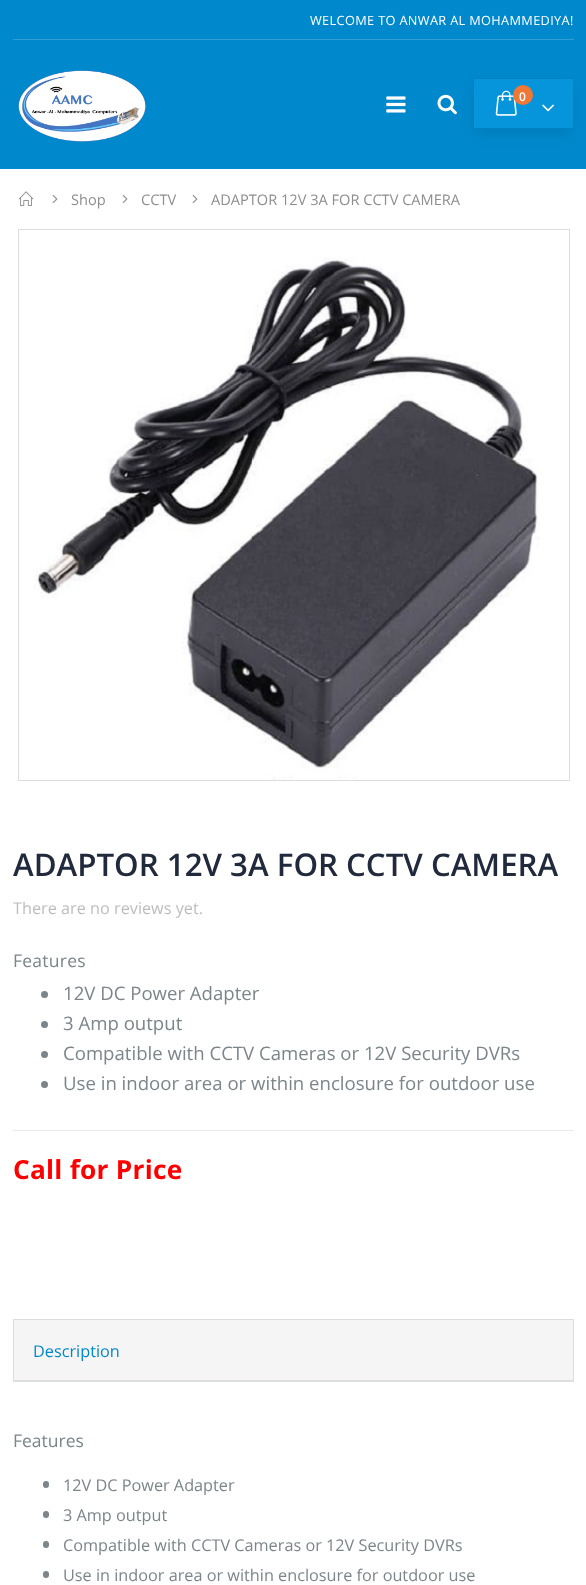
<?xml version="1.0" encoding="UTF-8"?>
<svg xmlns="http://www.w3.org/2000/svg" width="586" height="1585">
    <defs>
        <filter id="blur1" x="-50%" y="-200%" width="200%" height="500%"><feGaussianBlur stdDeviation="7"/></filter>
    </defs>
    <rect width="100%" height="100%" fill="#FFFFFF"/>
    <rect x="0" y="0" width="586" height="169" fill="#0088CC"/>
    <text x="310" y="25" font-family="Open Sans" font-size="12.75" letter-spacing="0.35" fill="#FFFFFF">WELCOME TO ANWAR AL MOHAMMEDIYA!</text>
    <rect x="13" y="39" width="561" height="1" fill="#329ED5"/>
    <image x="18" y="70" width="128" height="72" href="img_01.png"/>
    <image x="386" y="96" width="20" height="17" href="img_02.png"/>
    <rect x="475" y="86" width="96" height="47" fill="#000000" fill-opacity="0.1" filter="url(#blur1)"/>
    <image x="437" y="94" width="20" height="21" href="img_03.png"/>
    <rect x="473.5" y="78.5" width="100" height="50" fill="#0694DB" stroke="#0082C2"/>
    <image x="495" y="90" width="22" height="26" href="img_04.png"/>
    <circle cx="523" cy="95" r="10" fill="#F17734"/>
    <text x="519" y="101" font-family="Open Sans" font-size="12" font-weight="600" fill="#FFFFFF">0</text>
    <image x="542" y="104" width="12" height="8" href="img_05.png"/>
    <image x="19" y="191" width="15" height="15" href="img_06.png"/>
    <image x="52" y="194" width="6" height="10" href="img_07.png"/>
    <text x="71" y="205" font-family="Open Sans" font-size="14.6" fill="#8E8E8E">Shop</text>
    <image x="122" y="194" width="6" height="10" href="img_07.png"/>
    <text x="141" y="205" font-family="Open Sans" font-size="14.6" fill="#8E8E8E">CCTV</text>
    <image x="192" y="194" width="6" height="10" href="img_07.png"/>
    <text x="211" y="205" font-family="Open Sans" font-size="14.6" fill="#8E8E8E">ADAPTOR 12V 3A FOR CCTV CAMERA</text>
    <rect x="18.5" y="229.5" width="551" height="551" fill="none" stroke="#DDDDDD"/>
    <image x="33" y="257" width="507" height="523" href="img_08.png"/>
    <text x="13" y="876" font-family="Open Sans" font-size="31.25" font-weight="600" fill="#21293C">ADAPTOR 12V 3A FOR CCTV CAMERA</text>
    <text x="13" y="914" font-family="Open Sans" font-size="16.25" fill="#BDBDBD">There are no reviews yet.</text>
    <text x="13" y="967" font-family="Open Sans" font-size="17.5" letter-spacing="0.25" fill="#7B858A">Features</text>
    <circle cx="44.5" cy="994.5" r="3.5" fill="#7B858A"/>
    <text x="63" y="1000" font-family="Open Sans" font-size="18.6" fill="#7B858A">12V DC Power Adapter</text>
    <circle cx="44.5" cy="1024.5" r="3.5" fill="#7B858A"/>
    <text x="63" y="1030" font-family="Open Sans" font-size="18.6" fill="#7B858A">3 Amp output</text>
    <circle cx="44.5" cy="1054.5" r="3.5" fill="#7B858A"/>
    <text x="63" y="1060" font-family="Open Sans" font-size="18.6" fill="#7B858A">Compatible with CCTV Cameras or 12V Security DVRs</text>
    <circle cx="44.5" cy="1084.5" r="3.5" fill="#7B858A"/>
    <text x="63" y="1090" font-family="Open Sans" font-size="18.6" fill="#7B858A">Use in indoor area or within enclosure for outdoor use</text>
    <rect x="13" y="1130" width="561" height="1" fill="#EBEBEB"/>
    <text x="13" y="1179" font-family="Open Sans" font-size="26.25" font-weight="700" letter-spacing="0.25" fill="#FF0000">Call for Price</text>
    <rect x="13.5" y="1319.5" width="560" height="61" fill="#F5F5F5" stroke="#DDDDDD"/>
    <text x="33" y="1357" font-family="Open Sans" font-size="16.25" fill="#0088CC">Description</text>
    <rect x="13" y="1381" width="561" height="1" fill="#DAE2E6"/>
    <text x="13" y="1447" font-family="Open Sans" font-size="17.5" fill="#7B858A">Features</text>
    <rect x="43" y="1481" width="6" height="7" rx="3" fill="#7B858A"/>
    <text x="63" y="1491" font-family="Open Sans" font-size="16.25" fill="#7B858A">12V DC Power Adapter</text>
    <rect x="43" y="1511" width="6" height="7" rx="3" fill="#7B858A"/>
    <text x="63" y="1521" font-family="Open Sans" font-size="16.25" fill="#7B858A">3 Amp output</text>
    <rect x="43" y="1541" width="6" height="7" rx="3" fill="#7B858A"/>
    <text x="63" y="1551" font-family="Open Sans" font-size="16.25" fill="#7B858A">Compatible with CCTV Cameras or 12V Security DVRs</text>
    <rect x="43" y="1571" width="6" height="7" rx="3" fill="#7B858A"/>
    <text x="63" y="1581" font-family="Open Sans" font-size="16.25" fill="#7B858A">Use in indoor area or within enclosure for outdoor use</text>
</svg>
